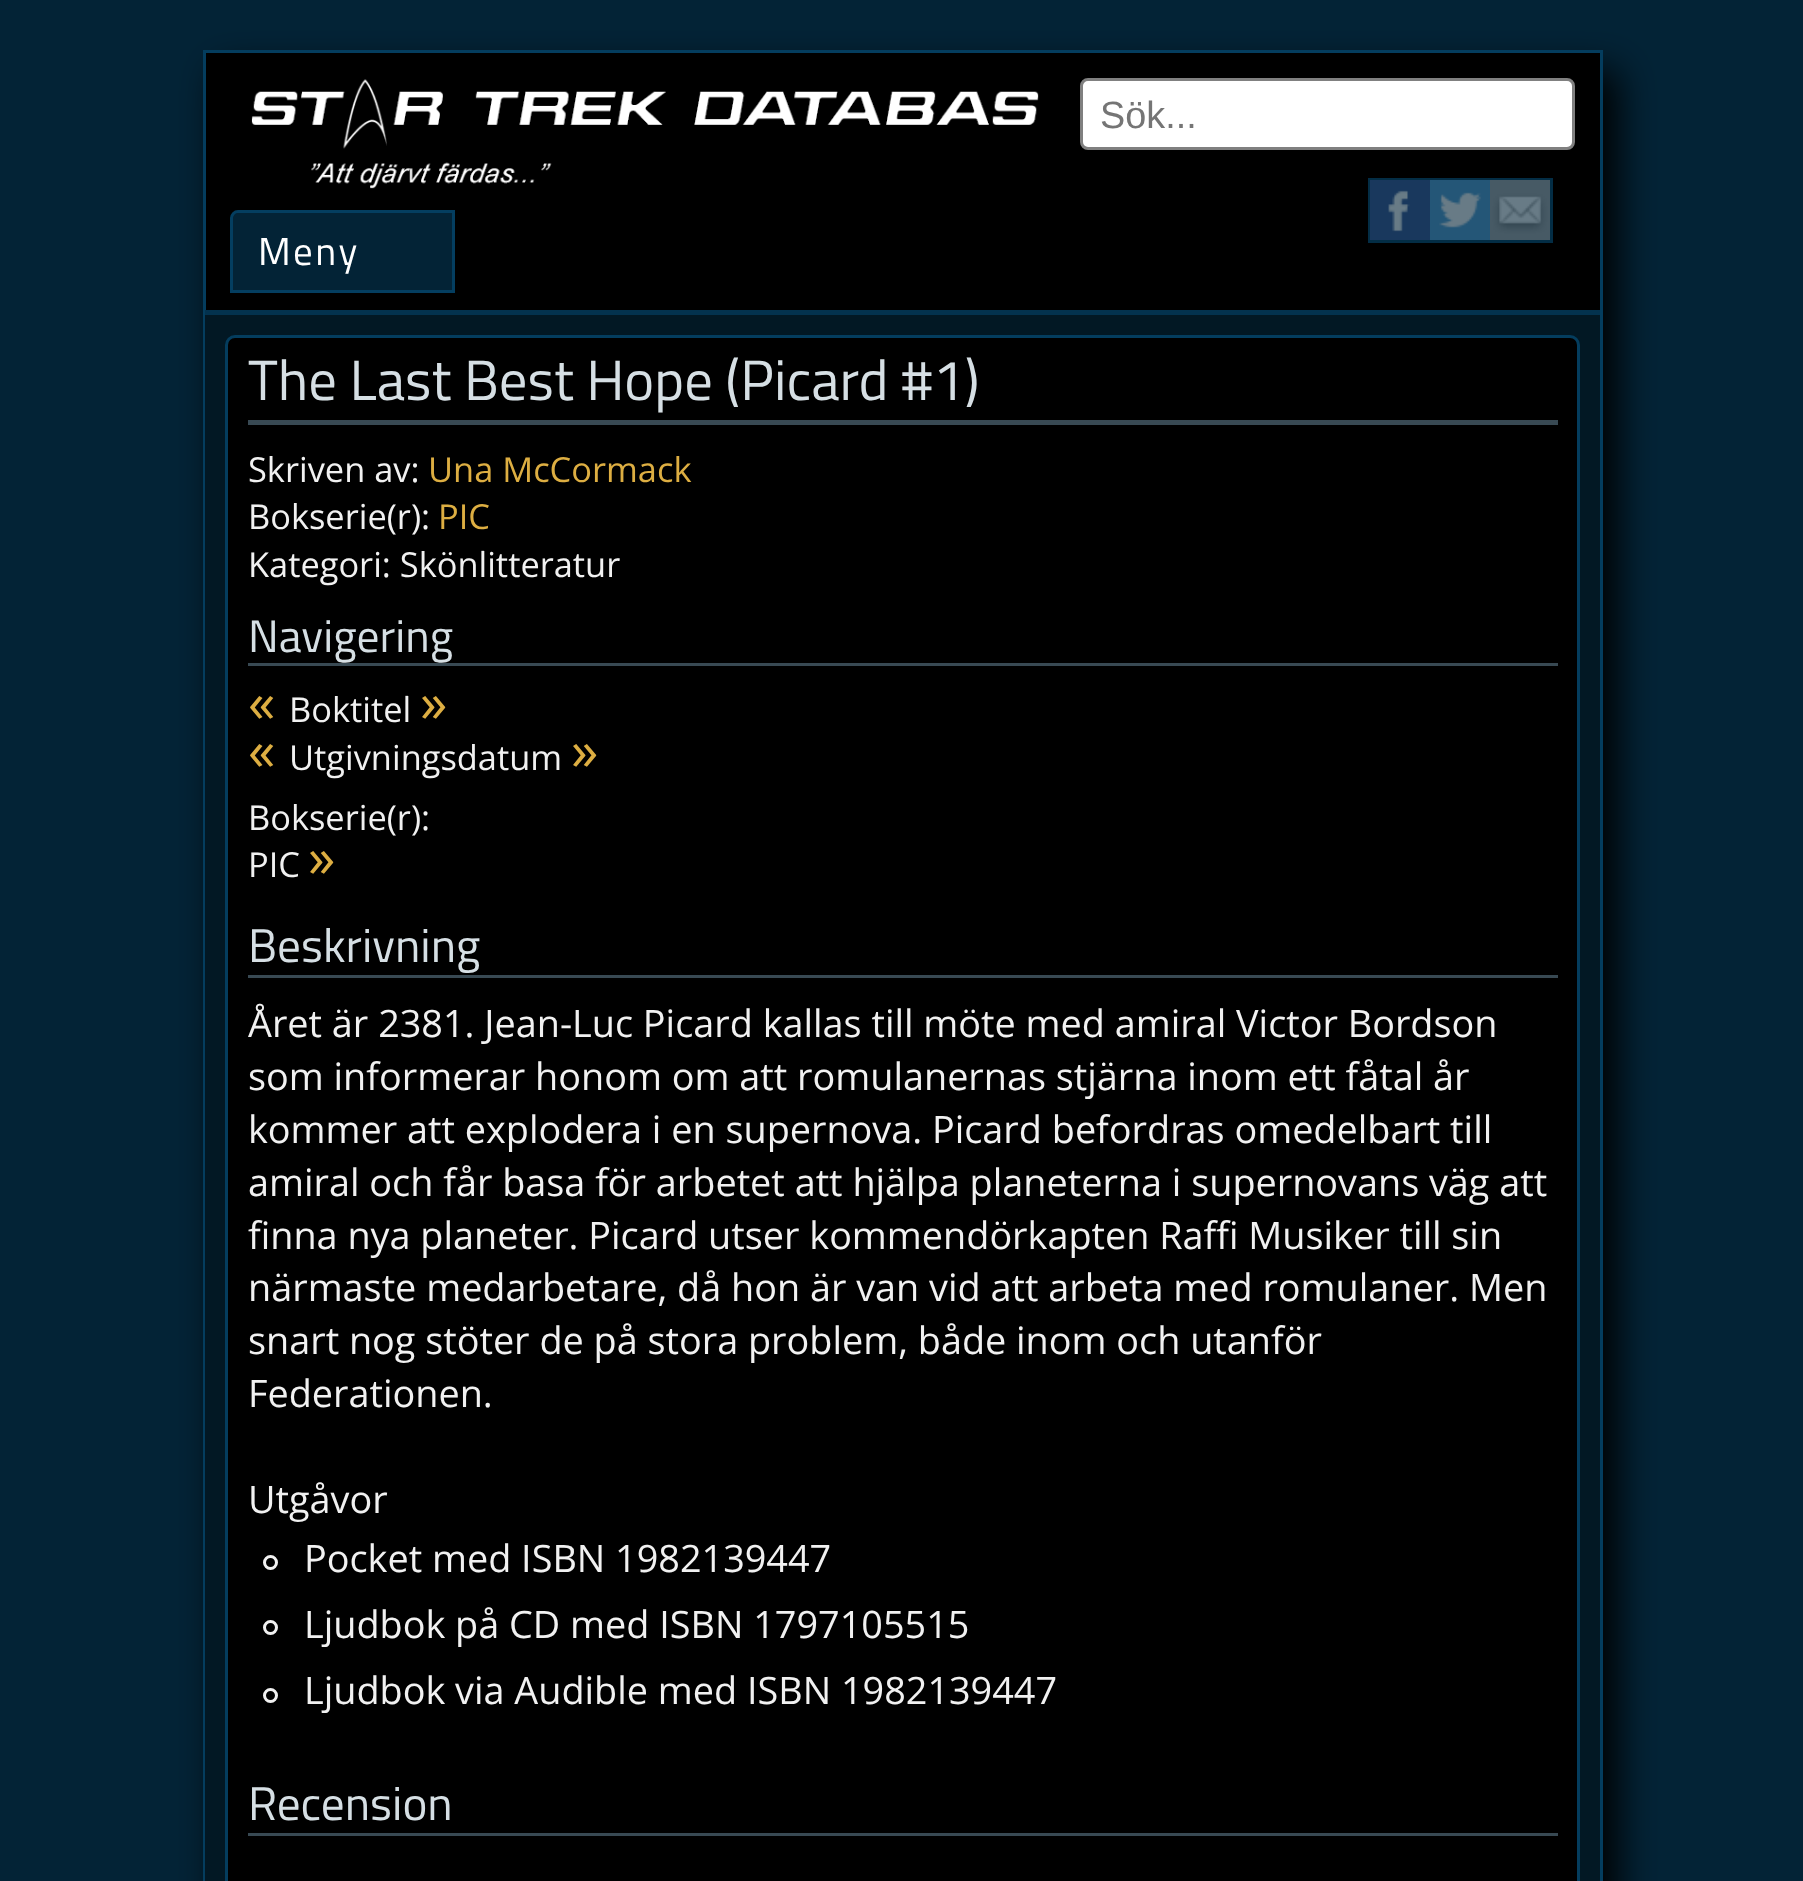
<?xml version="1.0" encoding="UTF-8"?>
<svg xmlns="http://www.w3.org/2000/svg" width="1803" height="1881">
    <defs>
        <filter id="blur1" x="-50%" y="-200%" width="200%" height="500%"><feGaussianBlur stdDeviation="19"/></filter>
    </defs>
    <rect width="100%" height="100%" fill="#032336"/>
    <rect x="218" y="70" width="1400" height="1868" fill="#000000" filter="url(#blur1)"/>
    <rect x="206" y="53" width="1394" height="257" fill="#000000"/>
    <rect x="204.5" y="51.5" width="1397" height="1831" fill="none" stroke="#043D5E" stroke-width="3"/>
    <rect x="205" y="310" width="1395" height="5" fill="#03324E"/>
    <image x="251" y="79" width="788" height="110" href="img_01.png"/>
    <rect x="1081.5" y="79.5" width="492" height="69" rx="6.5" fill="#FFFFFF" stroke="#808080" stroke-width="3"/>
    <text x="1100" y="128" font-family="Liberation Sans" font-size="37.8" fill="#757575">Sök...</text>
    <rect x="1369.5" y="179.5" width="182" height="62" fill="none" stroke="#043D5E" stroke-width="3"/>
    <image x="1370" y="180" width="60" height="60" href="img_02.png"/>
    <image x="1430" y="180" width="60" height="60" href="img_03.png"/>
    <image x="1490" y="180" width="60" height="60" href="img_04.png"/>
    <rect x="1368" y="178" width="185" height="65" fill="#032336" fill-opacity="0.6"/>
    <path d="M 238 211.5 H 453.5 V 291.5 H 231.5 V 218 C 231.5 214.5 234.5 211.5 238 211.5 Z" fill="#032336" stroke="#043E60" stroke-width="3"/>
    <text x="258" y="265" font-family="Titillium Web" font-size="39" letter-spacing="2.5" fill="#FFFFFF">Meny</text>
    <rect x="205" y="315" width="1395" height="1566" fill="#021824"/>
    <rect x="226.5" y="336.5" width="1352" height="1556" rx="8.5" fill="#000000" stroke="#043D5E" stroke-width="3"/>
    <rect x="248" y="420" width="1310" height="5" fill="#384953"/>
    <text x="248" y="400" font-family="Titillium Web" font-size="56.75" fill="#D6DFE4">The Last Best Hope (Picard #1)</text>
    <text x="248" y="482" font-family="Open Sans" font-size="34.4" fill="#F1F1F1">Skriven av:</text>
    <text x="428" y="482" font-family="Open Sans" font-size="34.4" fill="#DDAE42">Una McCormack</text>
    <text x="248" y="529" font-family="Open Sans" font-size="34.4" fill="#F1F1F1">Bokserie(r):</text>
    <text x="438" y="529" font-family="Open Sans" font-size="34.4" fill="#DDAE42">PIC</text>
    <text x="248" y="577" font-family="Open Sans" font-size="34.4" fill="#F1F1F1">Kategori: Skönlitteratur</text>
    <rect x="248" y="663" width="1310" height="3" fill="#384953"/>
    <text x="248" y="652" font-family="Titillium Web" font-size="45.5" fill="#D6DFE4">Navigering</text>
    <text x="248" y="722" font-family="Open Sans" font-size="55" fill="#DDAE42">«</text>
    <text x="289" y="722" font-family="Open Sans" font-size="34.4" fill="#F1F1F1">Boktitel</text>
    <text x="420" y="722" font-family="Open Sans" font-size="55" fill="#DDAE42">»</text>
    <text x="248" y="770" font-family="Open Sans" font-size="55" fill="#DDAE42">«</text>
    <text x="289" y="770" font-family="Open Sans" font-size="34.4" fill="#F1F1F1">Utgivningsdatum</text>
    <text x="571" y="770" font-family="Open Sans" font-size="55" fill="#DDAE42">»</text>
    <text font-family="Open Sans" font-size="34.4" fill="#F1F1F1">
        <tspan x="248" y="830">Bokserie(r):</tspan>
        <tspan x="248" y="877">PIC</tspan>
    </text>
    <text x="308" y="877" font-family="Open Sans" font-size="55" fill="#DDAE42">»</text>
    <rect x="248" y="975" width="1310" height="3" fill="#384953"/>
    <text x="248" y="962" font-family="Titillium Web" font-size="47.25" fill="#D6DFE4">Beskrivning</text>
    <text font-family="Open Sans" font-size="37.8" fill="#F1F1F1">
        <tspan x="248" y="1037">Året är 2381. Jean-Luc Picard kallas till möte med amiral Victor Bordson</tspan>
        <tspan x="248" y="1090">som informerar honom om att romulanernas stjärna inom ett fåtal år</tspan>
        <tspan x="248" y="1143">kommer att explodera i en supernova. Picard befordras omedelbart till</tspan>
        <tspan x="248" y="1196">amiral och får basa för arbetet att hjälpa planeterna i supernovans väg att</tspan>
        <tspan x="248" y="1249">finna nya planeter. Picard utser kommendörkapten Raffi Musiker till sin</tspan>
        <tspan x="248" y="1301">närmaste medarbetare, då hon är van vid att arbeta med romulaner. Men</tspan>
        <tspan x="248" y="1354">snart nog stöter de på stora problem, både inom och utanför</tspan>
        <tspan x="248" y="1407">Federationen.</tspan>
    </text>
    <text x="248" y="1513" font-family="Open Sans" font-size="37.8" fill="#F1F1F1">Utgåvor</text>
    <circle cx="270.5" cy="1562.5" r="6" fill="none" stroke="#F1F1F1" stroke-width="3"/>
    <text x="304" y="1572" font-family="Open Sans" font-size="37.8" fill="#F1F1F1">Pocket med ISBN 1982139447</text>
    <circle cx="270.5" cy="1627.5" r="6" fill="none" stroke="#F1F1F1" stroke-width="3"/>
    <text x="304" y="1638" font-family="Open Sans" font-size="37.8" fill="#F1F1F1">Ljudbok på CD med ISBN 1797105515</text>
    <circle cx="270.5" cy="1695.5" r="6" fill="none" stroke="#F1F1F1" stroke-width="3"/>
    <text x="304" y="1704" font-family="Open Sans" font-size="37.8" fill="#F1F1F1">Ljudbok via Audible med ISBN 1982139447</text>
    <rect x="248" y="1833" width="1310" height="3" fill="#384953"/>
    <text x="248" y="1820" font-family="Titillium Web" font-size="47.25" fill="#D6DFE4">Recension</text>
</svg>
